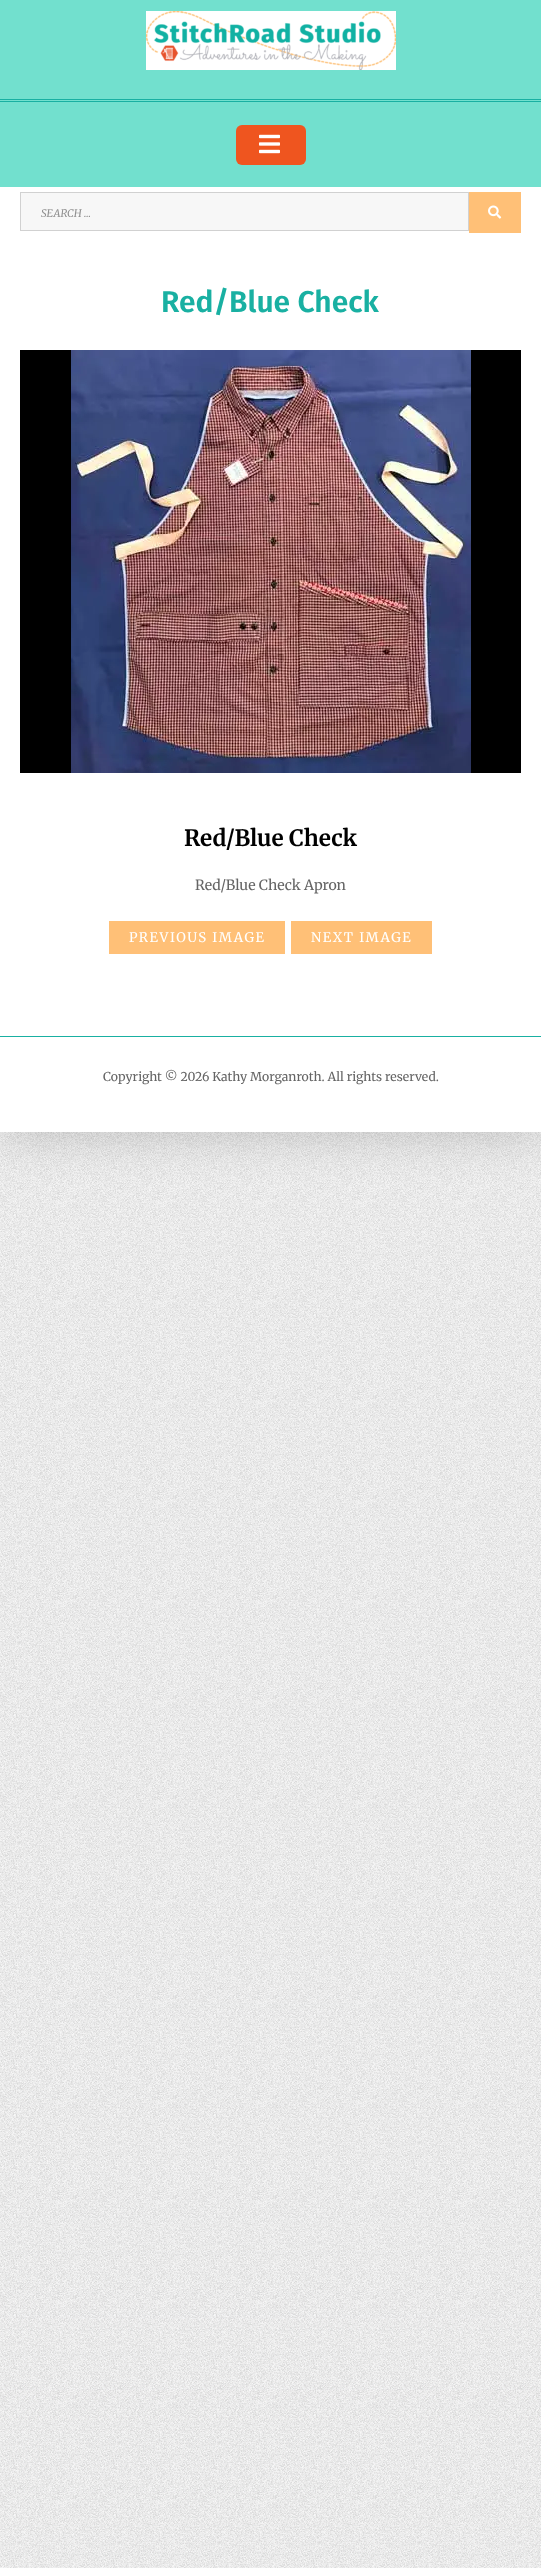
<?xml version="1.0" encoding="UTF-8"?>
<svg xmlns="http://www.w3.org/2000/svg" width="541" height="2568">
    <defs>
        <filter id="blur1" x="-50%" y="-200%" width="200%" height="500%"><feGaussianBlur stdDeviation="25"/></filter>
    </defs>
    <rect width="100%" height="100%" fill="#FFFFFF"/>
    <image x="0" y="1132" width="541" height="1436" href="img_01.png"/>
    <rect x="0" y="0" width="541" height="1132" fill="#000000" fill-opacity="0.2" filter="url(#blur1)"/>
    <rect x="0" y="187" width="541" height="945" fill="#FFFFFF"/>
    <rect x="0" y="0" width="541" height="187" fill="#72E0CE"/>
    <image x="146" y="11" width="250" height="59" href="img_02.png"/>
    <rect x="0" y="99" width="541" height="1" fill="#19B0A2"/>
    <rect x="0" y="101" width="541" height="1" fill="#19B0A2"/>
    <rect x="236" y="125" width="70" height="40" rx="6" fill="#EF551F"/>
    <image x="259" y="134" width="21" height="20" href="img_03.png"/>
    <rect x="20.5" y="192.5" width="448" height="38" fill="#F7F7F7" stroke="#D1D1D1"/>
    <text x="41" y="217" font-family="Merriweather" font-size="10.5" font-style="italic" fill="#8F8F8F">SEARCH …</text>
    <rect x="469" y="192" width="52" height="41" fill="#FFC077"/>
    <image x="488" y="205" width="14" height="14" href="img_04.png"/>
    <text x="161" y="312" font-family="Fira Sans" font-size="30" font-weight="600" fill="#19B0A2">Red/Blue Check</text>
    <rect x="20" y="350" width="501" height="423" fill="#000000"/>
    <image x="71" y="350" width="400" height="423" href="img_05.png"/>
    <text x="184" y="846" font-family="Merriweather" font-size="22.5" font-weight="700" fill="#000000">Red/Blue Check</text>
    <text x="195" y="890" font-family="Merriweather" font-size="14.1" fill="#656565">Red/Blue Check Apron</text>
    <rect x="109" y="921" width="176" height="33" fill="#FFC077"/>
    <text x="129" y="942" font-family="Merriweather" font-size="13.25" letter-spacing="1.5" fill="#FFFFFF">PREVIOUS IMAGE</text>
    <rect x="291" y="921" width="141" height="33" fill="#FFC077"/>
    <text x="311" y="942" font-family="Merriweather" font-size="13.25" letter-spacing="1.5" fill="#FFFFFF">NEXT IMAGE</text>
    <rect x="0" y="1036" width="541" height="1" fill="#19B0A2"/>
    <text x="103" y="1081" font-family="Merriweather" font-size="12.25" fill="#656565">Copyright © 2026 Kathy Morganroth. All rights reserved.</text>
</svg>
